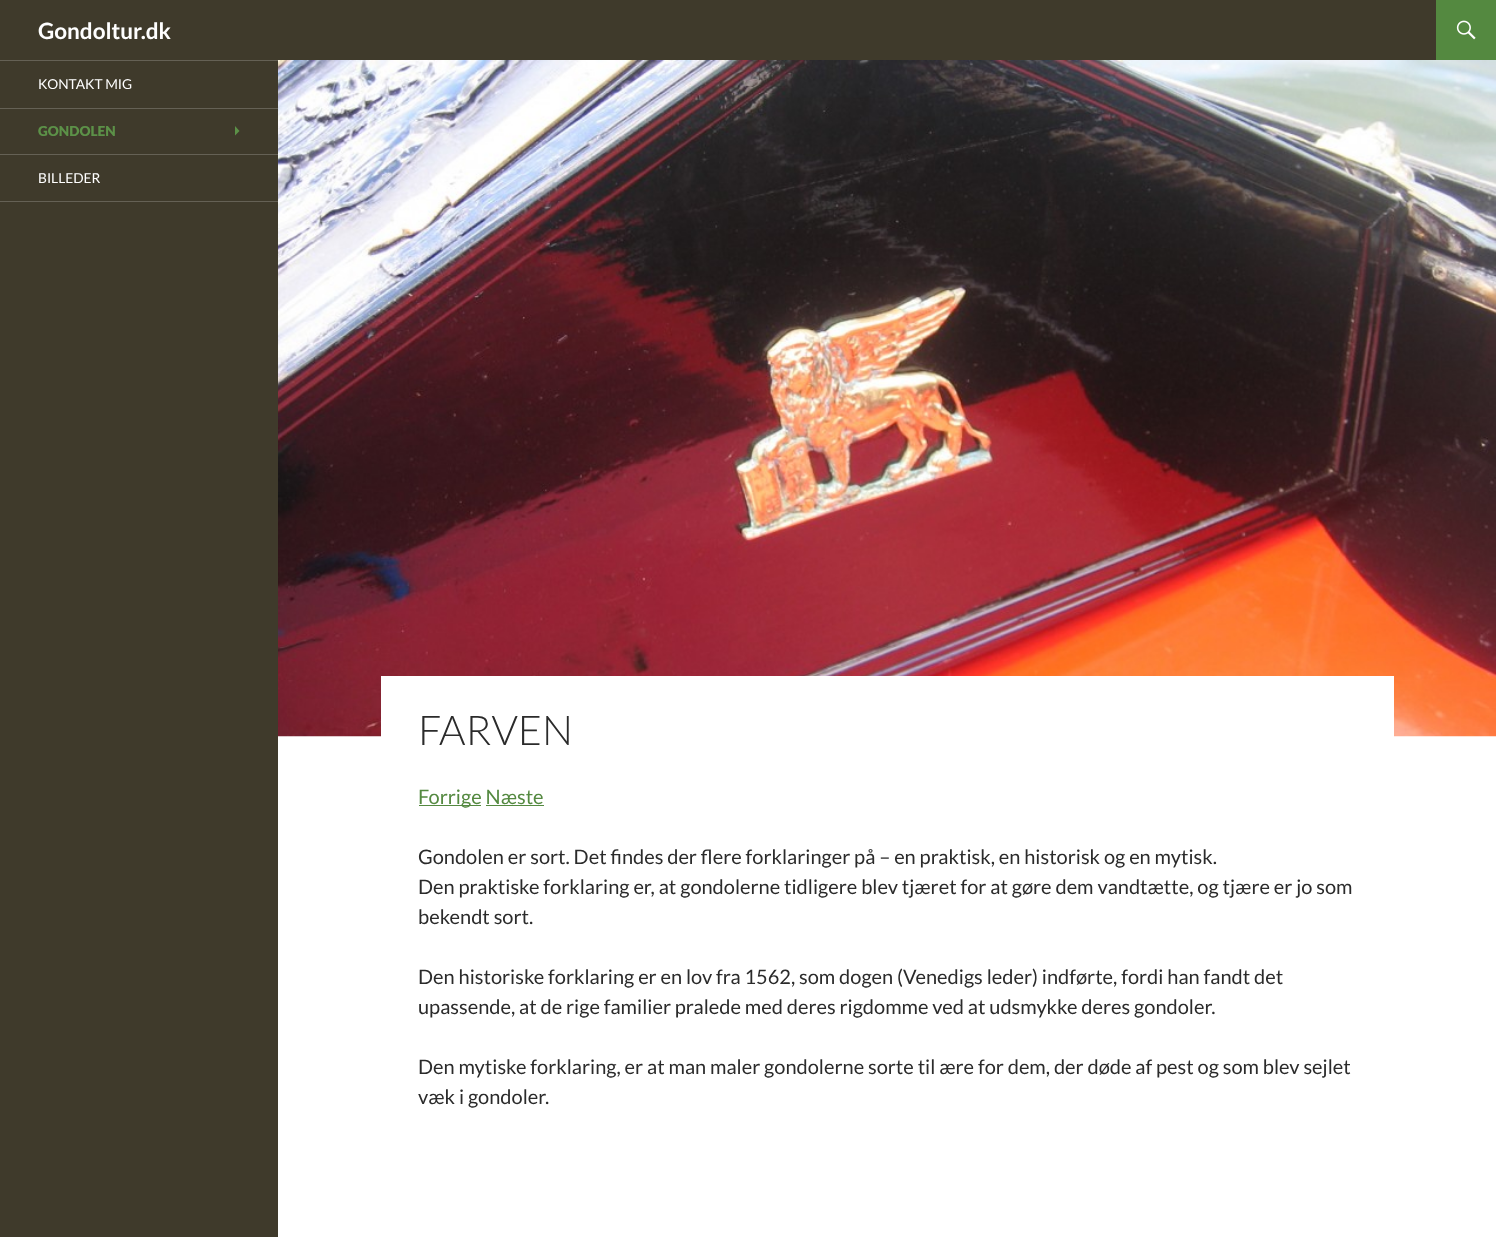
<?xml version="1.0" encoding="UTF-8"?>
<svg xmlns="http://www.w3.org/2000/svg" width="1496" height="1237">
    <rect width="100%" height="100%" fill="#FFFFFF"/>
    <rect x="0" y="0" width="1436" height="60" fill="#3F3A2B"/>
    <text x="38" y="39" font-family="Lato" font-size="22.5" font-weight="700" fill="#FFFFFF">Gondoltur.dk</text>
    <rect x="1436" y="0" width="60" height="60" fill="#548940"/>
    <image x="1456" y="20" width="20" height="20" href="img_01.png"/>
    <rect x="0" y="61" width="278" height="1176" fill="#3F3A2B"/>
    <rect x="0" y="201" width="278" height="1" fill="#656155"/>
    <rect x="0" y="60" width="278" height="1" fill="#656155"/>
    <text x="38" y="89" font-family="Lato" font-size="13.75" fill="#FFFFFF">KONTAKT MIG</text>
    <rect x="0" y="108" width="278" height="1" fill="#656155"/>
    <text x="38" y="136" font-family="Lato" font-size="13.75" font-weight="900" fill="#5C9148">GONDOLEN</text>
    <path d="M 235 135.5 L 239.5 131 L 235 126 Z" fill="#5C9148"/>
    <rect x="0" y="154" width="278" height="1" fill="#656155"/>
    <text x="38" y="183" font-family="Lato" font-size="13.75" fill="#FFFFFF">BILLEDER</text>
    <image x="278" y="60" width="1218" height="677" href="img_02.png"/>
    <rect x="381" y="676" width="1013" height="61" fill="#FFFFFF"/>
    <text x="418" y="745" font-family="Lato" font-size="41" font-weight="300" fill="#2B2B2B">FARVEN</text>
    <rect x="419" y="805" width="62" height="1" fill="#548940"/>
    <text x="418" y="804" font-family="Lato" font-size="20" fill="#548940">Forrige Næste</text>
    <rect x="486" y="805" width="58" height="1" fill="#548940"/>
    <text font-family="Lato" font-size="20" fill="#2B2B2B">
        <tspan x="418" y="864">Gondolen er sort. Det findes der flere forklaringer på – en praktisk, en historisk og en mytisk.</tspan>
        <tspan x="418" y="894">Den praktiske forklaring er, at gondolerne tidligere blev tjæret for at gøre dem vandtætte, og tjære er jo som</tspan>
        <tspan x="418" y="924">bekendt sort.</tspan>
    </text>
    <text font-family="Lato" font-size="20" fill="#2B2B2B">
        <tspan x="418" y="984">Den historiske forklaring er en lov fra 1562, som dogen (Venedigs leder) indførte, fordi han fandt det</tspan>
        <tspan x="418" y="1014">upassende, at de rige familier pralede med deres rigdomme ved at udsmykke deres gondoler.</tspan>
    </text>
    <text font-family="Lato" font-size="20" fill="#2B2B2B">
        <tspan x="418" y="1074">Den mytiske forklaring, er at man maler gondolerne sorte til ære for dem, der døde af pest og som blev sejlet</tspan>
        <tspan x="418" y="1104">væk i gondoler.</tspan>
    </text>
</svg>
